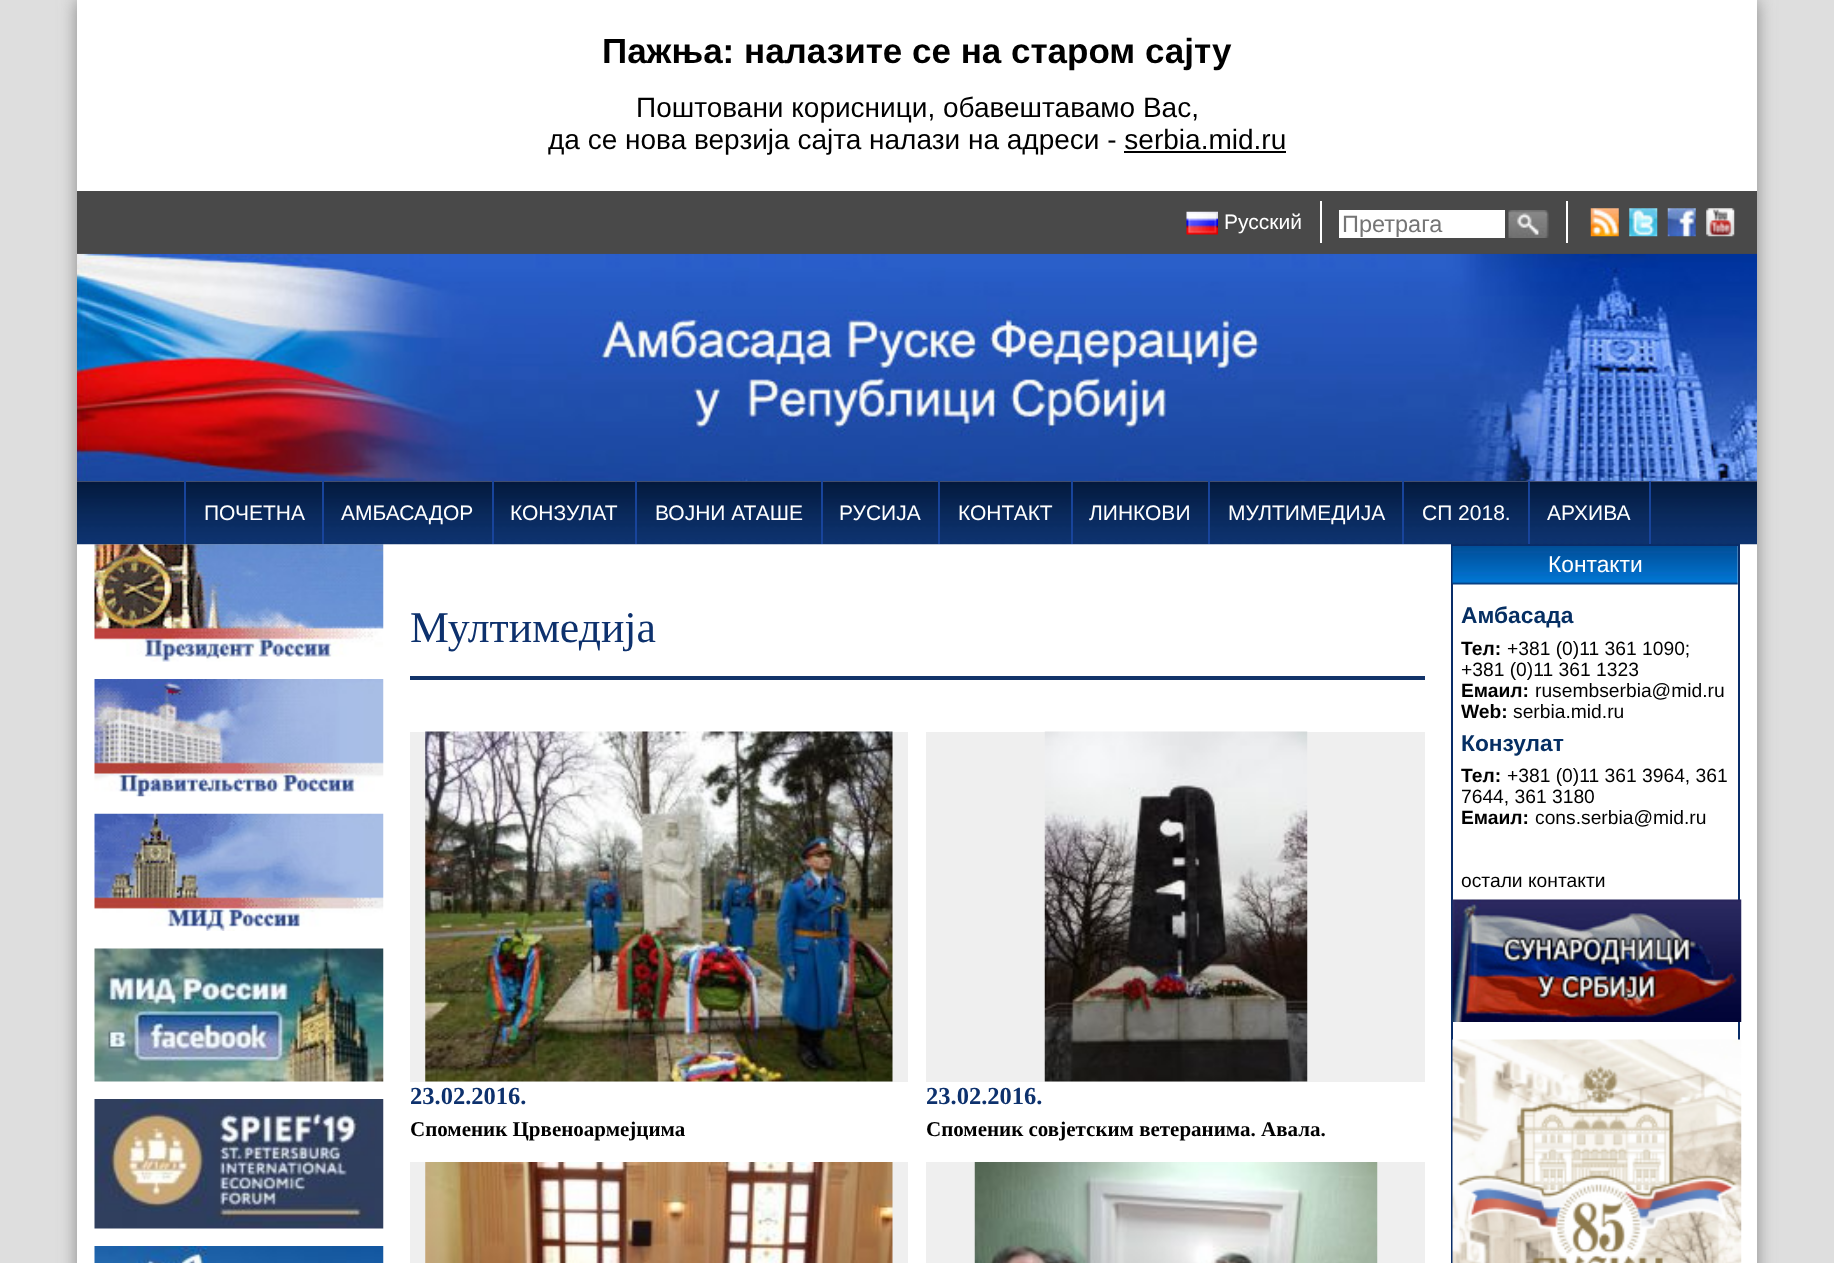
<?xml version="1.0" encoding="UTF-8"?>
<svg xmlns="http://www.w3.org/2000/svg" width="1834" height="1263">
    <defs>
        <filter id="blur1" x="-50%" y="-200%" width="200%" height="500%"><feGaussianBlur stdDeviation="9"/></filter>
    </defs>
    <rect width="100%" height="100%" fill="#DEDEDE"/>
    <rect x="77" y="0" width="1680" height="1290" fill="#888888" filter="url(#blur1)"/>
    <rect x="77" y="481" width="1680" height="782" fill="#FFFFFF"/>
    <rect x="77" y="0" width="1680" height="191" fill="#FFFFFF"/>
    <text x="602" y="63" font-family="Liberation Sans" font-size="35" font-weight="700" fill="#000000">Пажња: налазите се на старом сајту</text>
    <text x="636" y="117" font-family="Liberation Sans" font-size="28" fill="#000000">Поштовани корисници, обавештавамо Вас,</text>
    <text x="548" y="149" font-family="Liberation Sans" font-size="28" fill="#000000">да се нова верзија сајта налази на адреси - serbia.mid.ru</text>
    <rect x="1124" y="151" width="162" height="2" fill="#000000"/>
    <rect x="77" y="191" width="1680" height="63" fill="#494949"/>
    <image x="1186" y="211" width="32" height="24" href="img_01.png"/>
    <text x="1224" y="229" font-family="Liberation Sans" font-size="21" fill="#FFFFFF">Русский</text>
    <rect x="1320" y="201" width="2" height="42" fill="#FFFFFF"/>
    <rect x="1339" y="210" width="166" height="28" fill="#FFFFFF"/>
    <text x="1342" y="232" font-family="Liberation Sans" font-size="23.5" fill="#757575">Претрага</text>
    <image x="1508" y="210" width="41" height="28" href="img_02.png"/>
    <rect x="1566" y="201" width="2" height="42" fill="#FFFFFF"/>
    <image x="1590" y="208" width="29" height="29" href="img_03.png"/>
    <image x="1629" y="208" width="29" height="29" href="img_04.png"/>
    <image x="1667" y="208" width="29" height="29" href="img_05.png"/>
    <image x="1706" y="208" width="29" height="29" href="img_06.png"/>
    <image x="77" y="253" width="1680" height="229" href="img_07.png"/>
    <image x="94" y="544" width="290" height="118" href="img_09.png"/>
    <rect x="1452" y="545" width="287" height="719" fill="none" stroke="#092D69" stroke-width="2"/>
    <image x="77" y="481" width="1680" height="64" href="img_08.png"/>
    <rect x="184" y="481" width="2" height="63" fill="#18449B"/>
    <text x="204" y="520" font-family="Liberation Sans" font-size="21" fill="#FFFFFF">ПОЧЕТНА</text>
    <rect x="322" y="481" width="2" height="63" fill="#18449B"/>
    <text x="341" y="520" font-family="Liberation Sans" font-size="21" fill="#FFFFFF">АМБАСАДОР</text>
    <rect x="492" y="481" width="2" height="63" fill="#18449B"/>
    <text x="510" y="520" font-family="Liberation Sans" font-size="21" fill="#FFFFFF">КОНЗУЛАТ</text>
    <rect x="635" y="481" width="2" height="63" fill="#18449B"/>
    <text x="655" y="520" font-family="Liberation Sans" font-size="21" fill="#FFFFFF">ВОЈНИ АТАШЕ</text>
    <rect x="821" y="481" width="2" height="63" fill="#18449B"/>
    <text x="839" y="520" font-family="Liberation Sans" font-size="21" fill="#FFFFFF">РУСИЈА</text>
    <rect x="938" y="481" width="2" height="63" fill="#18449B"/>
    <text x="958" y="520" font-family="Liberation Sans" font-size="21" fill="#FFFFFF">КОНТАКТ</text>
    <rect x="1071" y="481" width="2" height="63" fill="#18449B"/>
    <text x="1089" y="520" font-family="Liberation Sans" font-size="21" fill="#FFFFFF">ЛИНКОВИ</text>
    <rect x="1208" y="481" width="2" height="63" fill="#18449B"/>
    <text x="1228" y="520" font-family="Liberation Sans" font-size="21" fill="#FFFFFF">МУЛТИМЕДИЈА</text>
    <rect x="1402" y="481" width="2" height="63" fill="#18449B"/>
    <text x="1422" y="520" font-family="Liberation Sans" font-size="21" fill="#FFFFFF">СП 2018.</text>
    <rect x="1649" y="481" width="2" height="63" fill="#18449B"/>
    <rect x="1528" y="481" width="2" height="63" fill="#18449B"/>
    <text x="1547" y="520" font-family="Liberation Sans" font-size="21" fill="#FFFFFF">АРХИВА</text>
    <image x="94" y="679" width="290" height="118" href="img_10.png"/>
    <image x="94" y="813" width="290" height="118" href="img_11.png"/>
    <image x="94" y="948" width="290" height="134" href="img_12.png"/>
    <image x="94" y="1099" width="290" height="130" href="img_13.png"/>
    <image x="94" y="1246" width="290" height="17" href="img_14.png"/>
    <rect x="410" y="676" width="1015" height="4" fill="#123369"/>
    <text x="410" y="642" font-family="Liberation Serif" font-size="43.75" fill="#0D316D">Мултимедија</text>
    <rect x="410" y="732" width="498" height="350" fill="#EFEFEF"/>
    <image x="425" y="731" width="468" height="351" href="img_15.png"/>
    <text x="410" y="1104" font-family="Liberation Serif" font-size="24.5" font-weight="700" fill="#0D316D">23.02.2016.</text>
    <text x="410" y="1136" font-family="Liberation Serif" font-size="21" font-weight="700" fill="#000000">Споменик Црвеноармејцима</text>
    <rect x="926" y="732" width="499" height="350" fill="#EFEFEF"/>
    <image x="1044" y="731" width="264" height="351" href="img_16.png"/>
    <text x="926" y="1104" font-family="Liberation Serif" font-size="24.5" font-weight="700" fill="#0D316D">23.02.2016.</text>
    <text x="926" y="1136" font-family="Liberation Serif" font-size="21" font-weight="700" fill="#000000">Споменик совјетским ветеранима. Авала.</text>
    <rect x="410" y="1162" width="498" height="101" fill="#EFEFEF"/>
    <image x="425" y="1162" width="468" height="101" href="img_17.png"/>
    <rect x="926" y="1162" width="499" height="101" fill="#EFEFEF"/>
    <image x="974" y="1162" width="404" height="101" href="img_18.png"/>
    <image x="1452" y="546" width="286" height="39" href="img_19.png"/>
    <text x="1548" y="572" font-family="Liberation Sans" font-size="22.75" fill="#FFFFFF">Контакти</text>
    <text x="1461" y="623" font-family="Liberation Sans" font-size="22.75" font-weight="700" fill="#062F63">Амбасада</text>
    <text x="1461" y="655" font-family="Liberation Sans" font-size="19.25" font-weight="700" fill="#000000">Тел:</text>
    <text x="1507" y="655" font-family="Liberation Sans" font-size="19.25" fill="#000000">+381 (0)11 361 1090;</text>
    <text x="1461" y="676" font-family="Liberation Sans" font-size="19.25" fill="#000000">+381 (0)11 361 1323</text>
    <text x="1461" y="697" font-family="Liberation Sans" font-size="19.25" font-weight="700" fill="#000000">Емаил:</text>
    <text x="1535" y="697" font-family="Liberation Sans" font-size="19.25" fill="#000000">rusembserbia@mid.ru</text>
    <text x="1461" y="718" font-family="Liberation Sans" font-size="19.25" font-weight="700" fill="#000000">Web:</text>
    <text x="1513" y="718" font-family="Liberation Sans" font-size="19.25" fill="#000000">serbia.mid.ru</text>
    <text x="1461" y="751" font-family="Liberation Sans" font-size="22.75" font-weight="700" fill="#062F63">Конзулат</text>
    <text x="1461" y="782" font-family="Liberation Sans" font-size="19.25" font-weight="700" fill="#000000">Тел:</text>
    <text x="1507" y="782" font-family="Liberation Sans" font-size="19.25" fill="#000000">+381 (0)11 361 3964, 361</text>
    <text x="1461" y="803" font-family="Liberation Sans" font-size="19.25" fill="#000000">7644, 361 3180</text>
    <text x="1461" y="824" font-family="Liberation Sans" font-size="19.25" font-weight="700" fill="#000000">Емаил:</text>
    <text x="1535" y="824" font-family="Liberation Sans" font-size="19.25" fill="#000000">cons.serbia@mid.ru</text>
    <text x="1461" y="887" font-family="Liberation Sans" font-size="19.25" fill="#000000">остали контакти</text>
    <image x="1452" y="899" width="290" height="123" href="img_20.png"/>
    <image x="1452" y="1039" width="290" height="224" href="img_21.png"/>
</svg>
